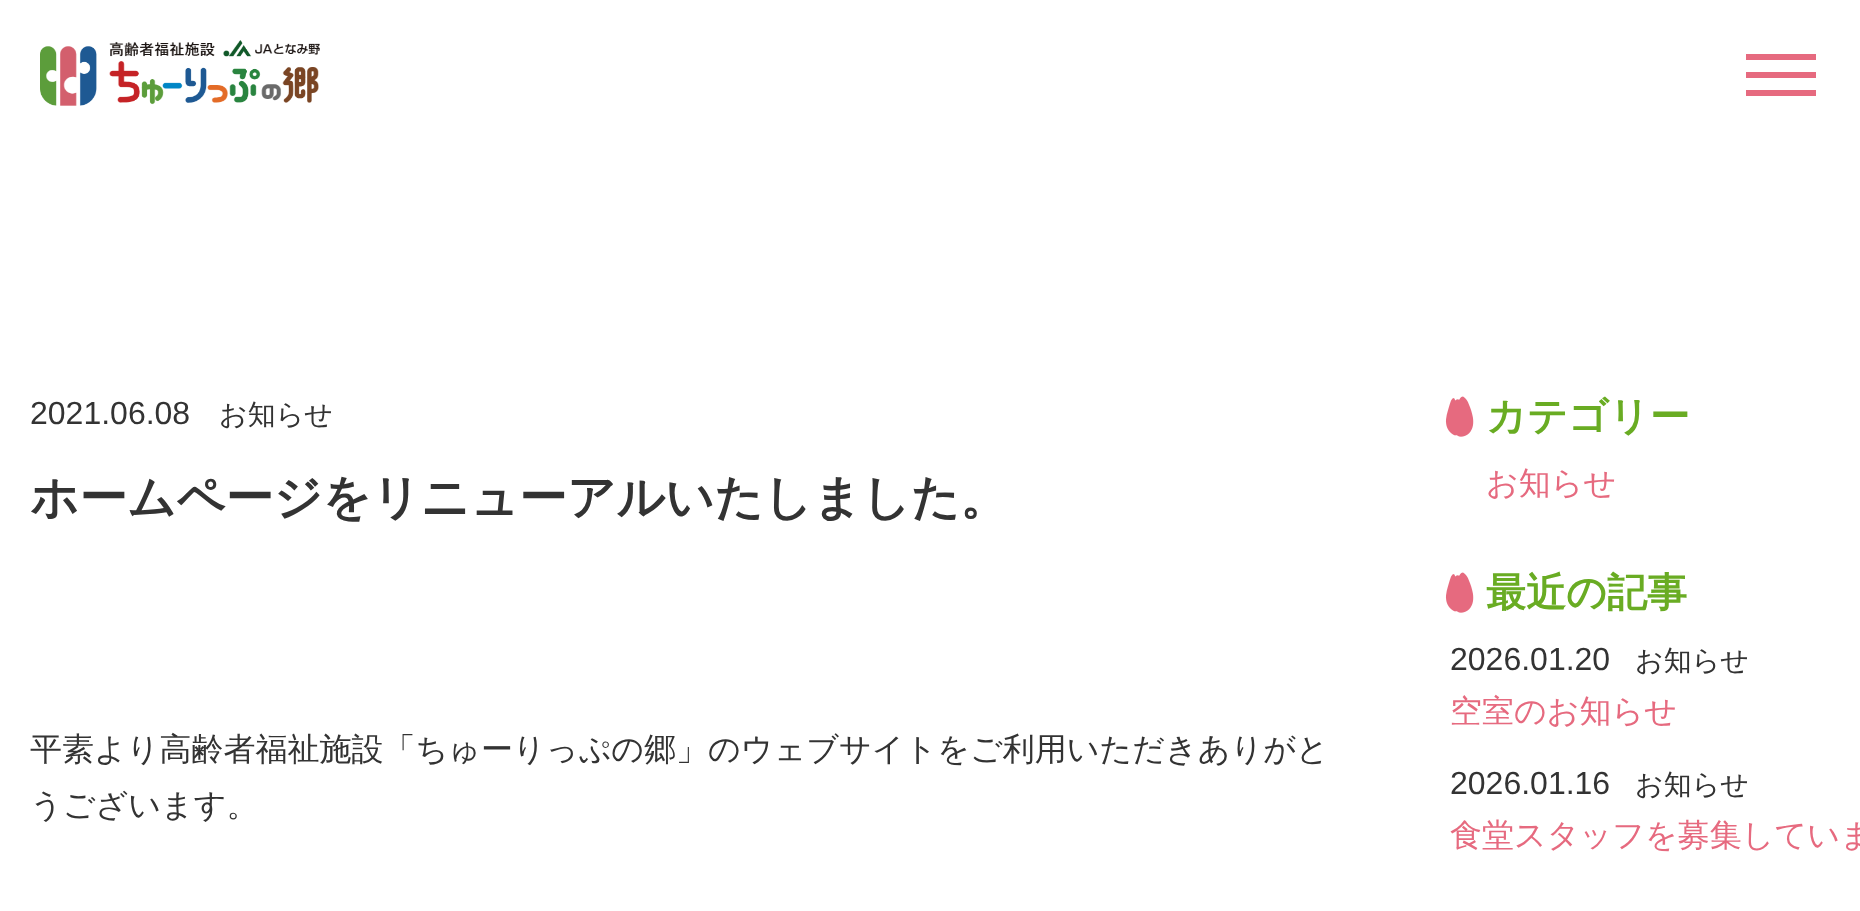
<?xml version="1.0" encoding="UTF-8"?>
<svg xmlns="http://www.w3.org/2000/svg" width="1860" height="911">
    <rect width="100%" height="100%" fill="#FFFFFF"/>
    <image x="40" y="40" width="280" height="66" href="img_01.png"/>
    <rect x="1746" y="54" width="70" height="6" fill="#E66A7F"/>
    <rect x="1746" y="72" width="70" height="6" fill="#E66A7F"/>
    <rect x="1746" y="90" width="70" height="6" fill="#E66A7F"/>
    <text x="30" y="424" font-family="Liberation Sans" font-size="32" fill="#333333">2021.06.08</text>
    <text x="219" y="424" font-family="WenQuanYi Zen Hei" font-size="28" font-weight="500" fill="#333333">お知らせ</text>
    <text x="30" y="514" font-family="WenQuanYi Zen Hei" font-size="48" font-weight="700" fill="#333333">ホームページをリニューアルいたしました。</text>
    <text font-family="WenQuanYi Zen Hei" font-size="32" font-weight="500" fill="#333333">
        <tspan x="30" y="760">平素より高齢者福祉施設「ちゅーりっぷの郷」のウェブサイトをご利用いただきありがと</tspan>
        <tspan x="30" y="816">うございます。</tspan>
    </text>
    <image x="1445" y="396" width="29" height="41" href="img_02.png"/>
    <text x="1486" y="430" font-family="WenQuanYi Zen Hei" font-size="40" font-weight="700" fill="#69AC23">カテゴリー</text>
    <text x="1486" y="494" font-family="WenQuanYi Zen Hei" font-size="32" font-weight="500" fill="#E66A7F">お知らせ</text>
    <image x="1445" y="572" width="29" height="41" href="img_02.png"/>
    <text x="1486" y="606" font-family="WenQuanYi Zen Hei" font-size="40" font-weight="700" fill="#69AC23">最近の記事</text>
    <text x="1450" y="670" font-family="Liberation Sans" font-size="32" fill="#333333">2026.01.20</text>
    <text x="1635" y="670" font-family="WenQuanYi Zen Hei" font-size="28" font-weight="500" fill="#333333">お知らせ</text>
    <text x="1450" y="722" font-family="WenQuanYi Zen Hei" font-size="32" font-weight="500" fill="#E66A7F">空室のお知らせ</text>
    <text x="1450" y="794" font-family="Liberation Sans" font-size="32" fill="#333333">2026.01.16</text>
    <text x="1635" y="794" font-family="WenQuanYi Zen Hei" font-size="28" font-weight="500" fill="#333333">お知らせ</text>
    <text x="1450" y="846" font-family="WenQuanYi Zen Hei" font-size="32" font-weight="500" fill="#E66A7F">食堂スタッフを募集していま</text>
</svg>
